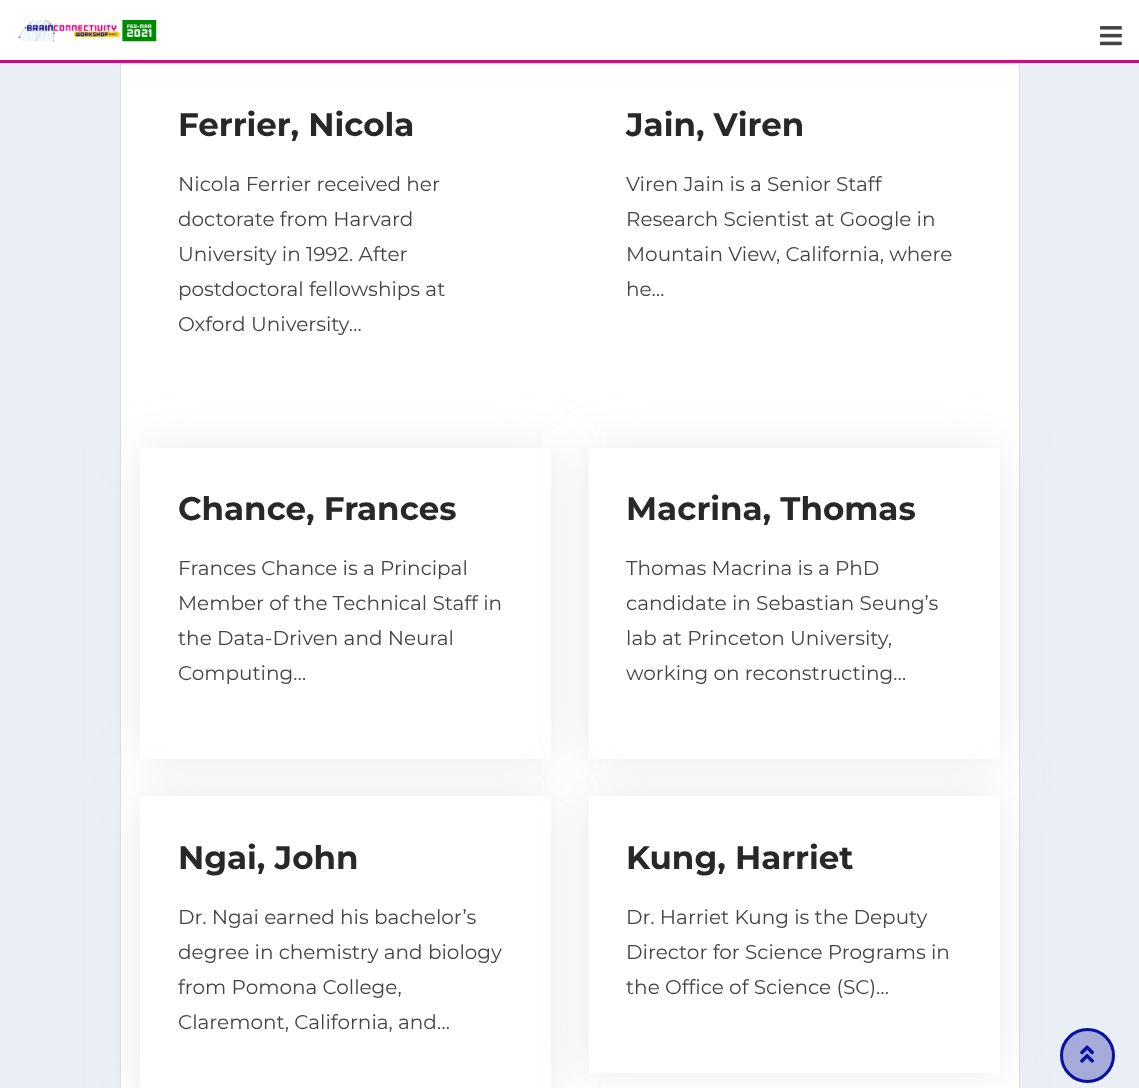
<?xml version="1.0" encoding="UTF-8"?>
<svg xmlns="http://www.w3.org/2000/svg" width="1139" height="1088">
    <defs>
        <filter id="blur1" x="-50%" y="-200%" width="200%" height="500%"><feGaussianBlur stdDeviation="25"/></filter>
    </defs>
    <rect width="100%" height="100%" fill="#E9EFF4"/>
    <rect x="0" y="0" width="1139" height="60" fill="#FFFFFF"/>
    <rect x="0" y="60" width="1139" height="3" fill="#E10188"/>
    <image x="18" y="20" width="139" height="22" href="img_01.png"/>
    <image x="1100" y="26" width="22" height="20" href="img_02.png"/>
    <rect x="120.5" y="63.5" width="899" height="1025" fill="#FFFFFF" stroke="#DDDDDD"/>
    <text x="178" y="136" font-family="Montserrat" font-size="32.5" font-weight="700" fill="#282828">Ferrier, Nicola</text>
    <text font-family="Montserrat" font-size="20" fill="#444444">
        <tspan x="178" y="191">Nicola Ferrier received her</tspan>
        <tspan x="178" y="226">doctorate from Harvard</tspan>
        <tspan x="178" y="261">University in 1992. After</tspan>
        <tspan x="178" y="296">postdoctoral fellowships at</tspan>
        <tspan x="178" y="331">Oxford University…</tspan>
    </text>
    <text x="626" y="136" font-family="Montserrat" font-size="32.5" font-weight="700" fill="#282828">Jain, Viren</text>
    <text font-family="Montserrat" font-size="20" fill="#444444">
        <tspan x="626" y="191">Viren Jain is a Senior Staff</tspan>
        <tspan x="626" y="226">Research Scientist at Google in</tspan>
        <tspan x="626" y="261">Mountain View, California, where</tspan>
        <tspan x="626" y="296">he…</tspan>
    </text>
    <rect x="140" y="448" width="411" height="311" fill="#D8D8D8" fill-opacity="0.5" filter="url(#blur1)"/>
    <rect x="140" y="448" width="411" height="311" fill="#FFFFFF"/>
    <text x="178" y="520" font-family="Montserrat" font-size="32.5" font-weight="700" fill="#282828">Chance, Frances</text>
    <text font-family="Montserrat" font-size="20" fill="#444444">
        <tspan x="178" y="575">Frances Chance is a Principal</tspan>
        <tspan x="178" y="610">Member of the Technical Staff in</tspan>
        <tspan x="178" y="645">the Data-Driven and Neural</tspan>
        <tspan x="178" y="680">Computing…</tspan>
    </text>
    <rect x="589" y="448" width="411" height="311" fill="#D8D8D8" fill-opacity="0.5" filter="url(#blur1)"/>
    <rect x="589" y="448" width="411" height="311" fill="#FFFFFF"/>
    <text x="626" y="520" font-family="Montserrat" font-size="32.5" font-weight="700" fill="#282828">Macrina, Thomas</text>
    <text font-family="Montserrat" font-size="20" fill="#444444">
        <tspan x="626" y="575">Thomas Macrina is a PhD</tspan>
        <tspan x="626" y="610">candidate in Sebastian Seung’s</tspan>
        <tspan x="626" y="645">lab at Princeton University,</tspan>
        <tspan x="626" y="680">working on reconstructing…</tspan>
    </text>
    <rect x="140" y="796" width="411" height="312" fill="#D8D8D8" fill-opacity="0.5" filter="url(#blur1)"/>
    <rect x="140" y="796" width="411" height="292" fill="#FFFFFF"/>
    <text x="178" y="869" font-family="Montserrat" font-size="32.5" font-weight="700" fill="#282828">Ngai, John</text>
    <text font-family="Montserrat" font-size="20" fill="#444444">
        <tspan x="178" y="924">Dr. Ngai earned his bachelor’s</tspan>
        <tspan x="178" y="959">degree in chemistry and biology</tspan>
        <tspan x="178" y="994">from Pomona College,</tspan>
        <tspan x="178" y="1029">Claremont, California, and…</tspan>
    </text>
    <rect x="589" y="796" width="411" height="277" fill="#D8D8D8" fill-opacity="0.5" filter="url(#blur1)"/>
    <rect x="589" y="796" width="411" height="277" fill="#FFFFFF"/>
    <text x="626" y="869" font-family="Montserrat" font-size="32.5" font-weight="700" fill="#282828">Kung, Harriet</text>
    <text font-family="Montserrat" font-size="20" fill="#444444">
        <tspan x="626" y="924">Dr. Harriet Kung is the Deputy</tspan>
        <tspan x="626" y="959">Director for Science Programs in</tspan>
        <tspan x="626" y="994">the Office of Science (SC)…</tspan>
    </text>
    <circle cx="1087.5" cy="1055.5" r="26" fill="#A6ACDA" stroke="#0B109F" stroke-width="3"/>
    <image x="1080" y="1045" width="15" height="18" href="img_03.png"/>
</svg>
